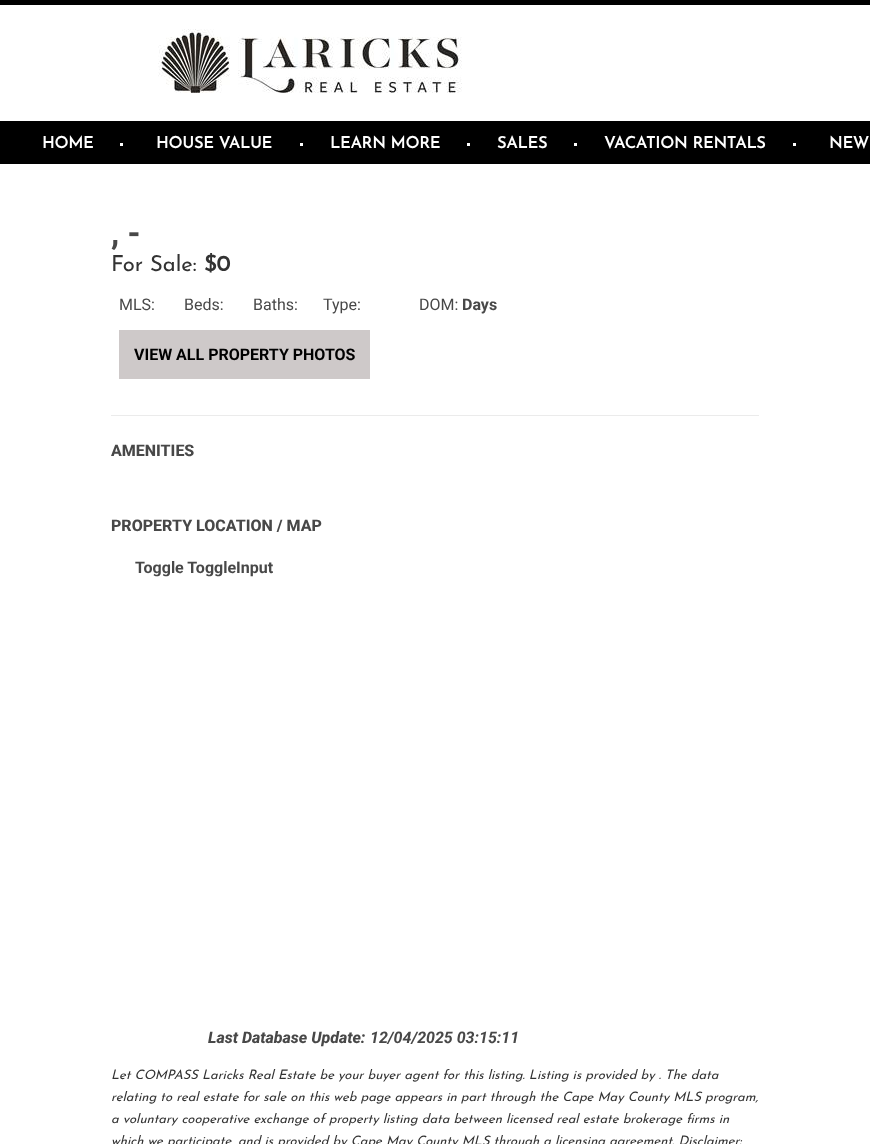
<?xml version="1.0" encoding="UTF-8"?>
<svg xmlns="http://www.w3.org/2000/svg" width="870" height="1144">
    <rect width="100%" height="100%" fill="#FFFFFF"/>
    <rect x="0" y="0" width="870" height="5" fill="#000000"/>
    <image x="158" y="29" width="304" height="64" href="img_01.png"/>
    <rect x="0" y="121" width="870" height="43" fill="#000000"/>
    <text x="42" y="148" font-family="Josefin Sans" font-size="16" font-weight="700" fill="#FFFFFF">HOME</text>
    <rect x="120" y="143" width="3" height="3" fill="#FFFFFF"/>
    <text x="156" y="148" font-family="Josefin Sans" font-size="16" font-weight="700" fill="#FFFFFF">HOUSE VALUE</text>
    <rect x="300" y="143" width="3" height="3" fill="#FFFFFF"/>
    <text x="330" y="148" font-family="Josefin Sans" font-size="16" font-weight="700" fill="#FFFFFF">LEARN MORE</text>
    <rect x="467" y="143" width="3" height="3" fill="#FFFFFF"/>
    <text x="497" y="148" font-family="Josefin Sans" font-size="16" font-weight="700" fill="#FFFFFF">SALES</text>
    <rect x="574" y="143" width="3" height="3" fill="#FFFFFF"/>
    <text x="604" y="148" font-family="Josefin Sans" font-size="16" font-weight="700" fill="#FFFFFF">VACATION RENTALS</text>
    <rect x="793" y="143" width="3" height="3" fill="#FFFFFF"/>
    <text x="829" y="148" font-family="Josefin Sans" font-size="16" font-weight="700" fill="#FFFFFF">NEW</text>
    <text x="111" y="244" font-family="Roboto" font-size="32" font-weight="800" fill="#484848">, -</text>
    <text x="111" y="271" font-family="Josefin Sans" font-size="22" font-weight="100" fill="#333333">For Sale:</text>
    <text x="204" y="271" font-family="Josefin Sans" font-size="22" font-weight="700" fill="#333333">$0</text>
    <text x="119" y="310" font-family="Roboto" font-size="16" fill="#484848">MLS:</text>
    <text x="184" y="310" font-family="Roboto" font-size="16" fill="#484848">Beds:</text>
    <text x="253" y="310" font-family="Roboto" font-size="16" fill="#484848">Baths:</text>
    <text x="323" y="310" font-family="Roboto" font-size="16" fill="#484848">Type:</text>
    <text x="419" y="310" font-family="Roboto" font-size="16" fill="#484848">DOM:</text>
    <text x="462" y="310" font-family="Roboto" font-size="16" font-weight="700" fill="#484848">Days</text>
    <rect x="119" y="330" width="251" height="49" fill="#CEC9C9"/>
    <text x="134" y="360" font-family="Roboto" font-size="16" font-weight="700" fill="#000000">VIEW ALL PROPERTY PHOTOS</text>
    <rect x="111" y="415" width="648" height="1" fill="#EBEBEB"/>
    <text x="111" y="456" font-family="Roboto" font-size="16" font-weight="800" fill="#484848">AMENITIES</text>
    <text x="111" y="531" font-family="Roboto" font-size="16" font-weight="800" fill="#484848">PROPERTY LOCATION / MAP</text>
    <text x="135" y="573" font-family="Roboto" font-size="16" font-weight="700" fill="#484848">Toggle ToggleInput</text>
    <text x="208" y="1043" font-family="Roboto" font-size="16" font-weight="800" font-style="italic" fill="#484848">Last Database Update:</text>
    <text x="370" y="1043" font-family="Roboto" font-size="16" font-weight="700" font-style="italic" fill="#484848">12/04/2025 03:15:11</text>
    <text font-family="Josefin Sans" font-size="13" font-weight="100" font-style="italic" fill="#333333">
        <tspan x="111" y="1079">Let COMPASS Laricks Real Estate be your buyer agent for this listing. Listing is provided by . The data</tspan>
        <tspan x="111" y="1101">relating to real estate for sale on this web page appears in part through the Cape May County MLS program,</tspan>
        <tspan x="111" y="1123">a voluntary cooperative exchange of property listing data between licensed real estate brokerage firms in</tspan>
        <tspan x="111" y="1145">which we participate, and is provided by Cape May County MLS through a licensing agreement. Disclaimer:</tspan>
    </text>
</svg>
